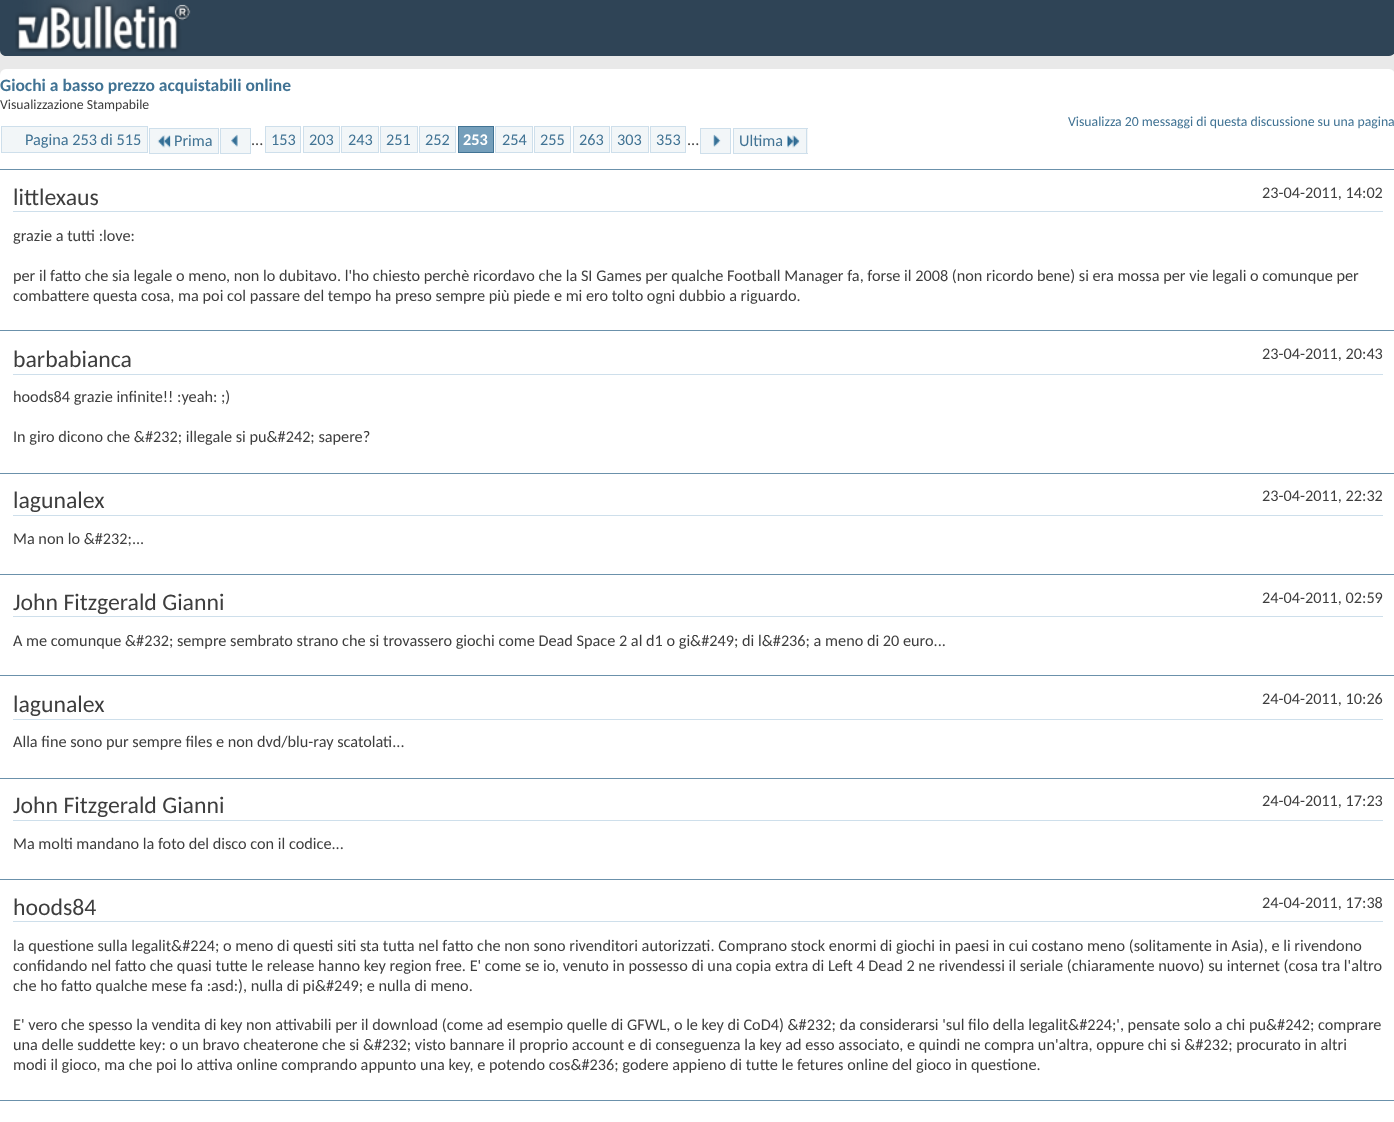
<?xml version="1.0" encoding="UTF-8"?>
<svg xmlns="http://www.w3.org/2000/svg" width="1394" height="1122">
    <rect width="100%" height="100%" fill="#E9E9E9"/>
    <path d="M 0 0 H 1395 V 50 C 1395 53.5 1392.5 56 1389 56 H 6 C 2.5 56 0 53.5 0 50 Z" fill="#2F4456"/>
    <image x="15" y="0" width="176" height="52" href="img_01.png"/>
    <rect x="0" y="69" width="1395" height="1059" rx="6" fill="#FFFFFF"/>
    <text x="0" y="91" font-family="Carlito" font-size="17.5" font-weight="700" fill="#417394">Giochi a basso prezzo acquistabili online</text>
    <text x="0" y="109" font-family="Carlito" font-size="13.75" fill="#3E3E3E">Visualizzazione Stampabile</text>
    <text x="1068" y="126" font-family="Carlito" font-size="13.75" fill="#417394">Visualizza 20 messaggi di questa discussione su una pagina</text>
    <rect x="1.5" y="126.5" width="146" height="26" fill="#F2F6F8" stroke="#CEDFEB"/>
    <text x="25" y="145" font-family="Carlito" font-size="16.25" fill="#417394">Pagina 253 di 515</text>
    <rect x="150" y="129" width="68" height="24" fill="#F2F6F8"/>
    <image x="157" y="135" width="14" height="13" href="img_02.png"/>
    <text x="174" y="146" font-family="Carlito" font-size="16.25" fill="#417394">Prima</text>
    <rect x="149" y="128" width="70" height="1" fill="#CEDFEB"/>
    <rect x="149" y="153" width="25" height="1" fill="#CEDFEB"/>
    <rect x="149" y="128" width="1" height="26" fill="#CEDFEB"/>
    <rect x="218" y="128" width="1" height="26" fill="#CEDFEB"/>
    <rect x="174" y="153" width="45" height="1" fill="#CEDFEB"/>
    <rect x="220.5" y="128.5" width="30" height="25" fill="#F2F6F8" stroke="#CEDFEB"/>
    <image x="231" y="134" width="7" height="13" href="img_03.png"/>
    <text x="251" y="145" font-family="Carlito" font-size="16.25" fill="#3E3E3E">...</text>
    <rect x="265.5" y="126.5" width="35" height="26" fill="#F2F6F8" stroke="#CEDFEB"/>
    <text x="271" y="145" font-family="Carlito" font-size="16.25" fill="#417394">153</text>
    <rect x="303.5" y="126.5" width="36" height="26" fill="#F2F6F8" stroke="#CEDFEB"/>
    <text x="309" y="145" font-family="Carlito" font-size="16.25" fill="#417394">203</text>
    <rect x="341.5" y="126.5" width="37" height="26" fill="#F2F6F8" stroke="#CEDFEB"/>
    <text x="348" y="145" font-family="Carlito" font-size="16.25" fill="#417394">243</text>
    <rect x="380.5" y="126.5" width="37" height="26" fill="#F2F6F8" stroke="#CEDFEB"/>
    <text x="386" y="145" font-family="Carlito" font-size="16.25" fill="#417394">251</text>
    <rect x="419.5" y="126.5" width="36" height="26" fill="#F2F6F8" stroke="#CEDFEB"/>
    <text x="425" y="145" font-family="Carlito" font-size="16.25" fill="#417394">252</text>
    <rect x="458.5" y="126.5" width="35" height="26" fill="#759FBB" stroke="#417394"/>
    <text x="463" y="145" font-family="Carlito" font-size="16.25" font-weight="700" fill="#FFFFFF">253</text>
    <rect x="495.5" y="126.5" width="37" height="26" fill="#F2F6F8" stroke="#CEDFEB"/>
    <text x="502" y="145" font-family="Carlito" font-size="16.25" fill="#417394">254</text>
    <rect x="534.5" y="126.5" width="36" height="26" fill="#F2F6F8" stroke="#CEDFEB"/>
    <text x="540" y="145" font-family="Carlito" font-size="16.25" fill="#417394">255</text>
    <rect x="573.5" y="126.5" width="36" height="26" fill="#F2F6F8" stroke="#CEDFEB"/>
    <text x="579" y="145" font-family="Carlito" font-size="16.25" fill="#417394">263</text>
    <rect x="611.5" y="126.5" width="37" height="26" fill="#F2F6F8" stroke="#CEDFEB"/>
    <text x="617" y="145" font-family="Carlito" font-size="16.25" fill="#417394">303</text>
    <rect x="650.5" y="126.5" width="35" height="26" fill="#F2F6F8" stroke="#CEDFEB"/>
    <text x="656" y="145" font-family="Carlito" font-size="16.25" fill="#417394">353</text>
    <text x="687" y="145" font-family="Carlito" font-size="16.25" fill="#3E3E3E">...</text>
    <rect x="700.5" y="128.5" width="30" height="25" fill="#F2F6F8" stroke="#CEDFEB"/>
    <image x="713" y="134" width="8" height="13" href="img_04.png"/>
    <rect x="734" y="129" width="74" height="24" fill="#F2F6F8"/>
    <text x="739" y="146" font-family="Carlito" font-size="16.25" fill="#417394">Ultima</text>
    <rect x="733" y="128" width="75" height="1" fill="#CEDFEB"/>
    <rect x="733" y="153" width="50" height="1" fill="#CEDFEB"/>
    <rect x="733" y="128" width="1" height="26" fill="#CEDFEB"/>
    <rect x="806" y="128" width="1" height="26" fill="#CEDFEB"/>
    <rect x="783" y="153" width="25" height="1" fill="#CEDFEB"/>
    <image x="787" y="135" width="13" height="13" href="img_05.png"/>
    <rect x="0" y="169" width="1394" height="1" fill="#6B91AB"/>
    <rect x="13" y="211" width="1370" height="1" fill="#CEDFEB"/>
    <text x="13" y="205" font-family="Carlito" font-size="23.75" fill="#3E3E3E">littlexaus</text>
    <text x="1262" y="198" font-family="Carlito" font-size="16.25" fill="#3E3E3E">23-04-2011, 14:02</text>
    <text x="13" y="241" font-family="Carlito" font-size="16.25" fill="#3E3E3E">grazie a tutti :love:</text>
    <text font-family="Carlito" font-size="16.25" fill="#3E3E3E">
        <tspan x="13" y="281">per il fatto che sia legale o meno, non lo dubitavo. l'ho chiesto perchè ricordavo che la SI Games per qualche Football Manager fa, forse il 2008 (non ricordo bene) si era mossa per vie legali o comunque per</tspan>
        <tspan x="13" y="301">combattere questa cosa, ma poi col passare del tempo ha preso sempre più piede e mi ero tolto ogni dubbio a riguardo.</tspan>
    </text>
    <rect x="0" y="330" width="1394" height="1" fill="#6B91AB"/>
    <rect x="13" y="374" width="1370" height="1" fill="#CEDFEB"/>
    <text x="13" y="367" font-family="Carlito" font-size="23.75" fill="#3E3E3E">barbabianca</text>
    <text x="1262" y="359" font-family="Carlito" font-size="16.25" fill="#3E3E3E">23-04-2011, 20:43</text>
    <text x="13" y="402" font-family="Carlito" font-size="16.25" fill="#3E3E3E">hoods84 grazie infinite!! :yeah: ;)</text>
    <text x="13" y="442" font-family="Carlito" font-size="16.25" fill="#3E3E3E">In giro dicono che &amp;#232; illegale si pu&amp;#242; sapere?</text>
    <rect x="0" y="473" width="1394" height="1" fill="#6B91AB"/>
    <rect x="13" y="515" width="1370" height="1" fill="#CEDFEB"/>
    <text x="13" y="508" font-family="Carlito" font-size="23.75" fill="#3E3E3E">lagunalex</text>
    <text x="1262" y="501" font-family="Carlito" font-size="16.25" fill="#3E3E3E">23-04-2011, 22:32</text>
    <text x="13" y="544" font-family="Carlito" font-size="16.25" fill="#3E3E3E">Ma non lo &amp;#232;...</text>
    <rect x="0" y="574" width="1394" height="1" fill="#6B91AB"/>
    <rect x="13" y="616" width="1370" height="1" fill="#CEDFEB"/>
    <text x="13" y="610" font-family="Carlito" font-size="23.75" fill="#3E3E3E">John Fitzgerald Gianni</text>
    <text x="1262" y="603" font-family="Carlito" font-size="16.25" fill="#3E3E3E">24-04-2011, 02:59</text>
    <text x="13" y="646" font-family="Carlito" font-size="16.25" fill="#3E3E3E">A me comunque &amp;#232; sempre sembrato strano che si trovassero giochi come Dead Space 2 al d1 o gi&amp;#249; di l&amp;#236; a meno di 20 euro...</text>
    <rect x="0" y="675" width="1394" height="1" fill="#6B91AB"/>
    <rect x="13" y="719" width="1370" height="1" fill="#CEDFEB"/>
    <text x="13" y="712" font-family="Carlito" font-size="23.75" fill="#3E3E3E">lagunalex</text>
    <text x="1262" y="704" font-family="Carlito" font-size="16.25" fill="#3E3E3E">24-04-2011, 10:26</text>
    <text x="13" y="747" font-family="Carlito" font-size="16.25" fill="#3E3E3E">Alla fine sono pur sempre files e non dvd/blu-ray scatolati...</text>
    <rect x="0" y="778" width="1394" height="1" fill="#6B91AB"/>
    <rect x="13" y="820" width="1370" height="1" fill="#CEDFEB"/>
    <text x="13" y="813" font-family="Carlito" font-size="23.75" fill="#3E3E3E">John Fitzgerald Gianni</text>
    <text x="1262" y="806" font-family="Carlito" font-size="16.25" fill="#3E3E3E">24-04-2011, 17:23</text>
    <text x="13" y="849" font-family="Carlito" font-size="16.25" fill="#3E3E3E">Ma molti mandano la foto del disco con il codice...</text>
    <rect x="0" y="879" width="1394" height="1" fill="#6B91AB"/>
    <rect x="13" y="921" width="1370" height="1" fill="#CEDFEB"/>
    <text x="13" y="915" font-family="Carlito" font-size="23.75" fill="#3E3E3E">hoods84</text>
    <text x="1262" y="908" font-family="Carlito" font-size="16.25" fill="#3E3E3E">24-04-2011, 17:38</text>
    <text font-family="Carlito" font-size="16.25" fill="#3E3E3E">
        <tspan x="13" y="951">la questione sulla legalit&amp;#224; o meno di questi siti sta tutta nel fatto che non sono rivenditori autorizzati. Comprano stock enormi di giochi in paesi in cui costano meno (solitamente in Asia), e li rivendono</tspan>
        <tspan x="13" y="971">confidando nel fatto che quasi tutte le release hanno key region free. E' come se io, venuto in possesso di una copia extra di Left 4 Dead 2 ne rivendessi il seriale (chiaramente nuovo) su internet (cosa tra l'altro</tspan>
        <tspan x="13" y="991">che ho fatto qualche mese fa :asd:), nulla di pi&amp;#249; e nulla di meno.</tspan>
    </text>
    <text font-family="Carlito" font-size="16.25" fill="#3E3E3E">
        <tspan x="13" y="1030">E' vero che spesso la vendita di key non attivabili per il download (come ad esempio quelle di GFWL, o le key di CoD4) &amp;#232; da considerarsi 'sul filo della legalit&amp;#224;', pensate solo a chi pu&amp;#242; comprare</tspan>
        <tspan x="13" y="1050">una delle suddette key: o un bravo cheaterone che si &amp;#232; visto bannare il proprio account e di conseguenza la key ad esso associato, e quindi ne compra un'altra, oppure chi si &amp;#232; procurato in altri</tspan>
        <tspan x="13" y="1070">modi il gioco, ma che poi lo attiva online comprando appunto una key, e potendo cos&amp;#236; godere appieno di tutte le fetures online del gioco in questione.</tspan>
    </text>
    <rect x="0" y="1100" width="1394" height="1" fill="#6B91AB"/>
</svg>
